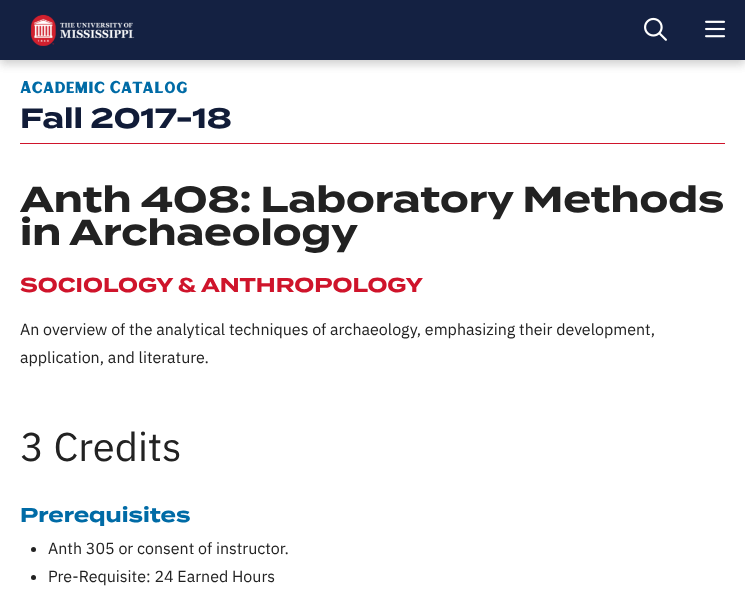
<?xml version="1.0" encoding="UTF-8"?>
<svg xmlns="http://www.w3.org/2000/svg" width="745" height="602">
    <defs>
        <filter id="blur1" x="-50%" y="-200%" width="200%" height="500%"><feGaussianBlur stdDeviation="5"/></filter>
    </defs>
    <rect width="100%" height="100%" fill="#FFFFFF"/>
    <rect x="0" y="4" width="745" height="60" fill="#000000" fill-opacity="0.1" filter="url(#blur1)"/>
    <rect x="0" y="4" width="745" height="60" fill="#000000" fill-opacity="0.1" filter="url(#blur1)"/>
    <rect x="0" y="0" width="745" height="60" fill="#142142"/>
    <image x="30" y="14" width="105" height="32" href="img_01.png"/>
    <image x="644" y="17" width="23" height="24" href="img_02.png"/>
    <image x="705" y="20" width="21" height="18" href="img_03.png"/>
    <text x="20" y="93" font-family="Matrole" font-size="16" fill="#006BA6">Academic Catalog</text>
    <text x="20" y="128" font-family="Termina" font-size="28" font-weight="700" fill="#111C38">Fall 2017-18</text>
    <rect x="20" y="143" width="705" height="1" fill="#CF142B"/>
    <text font-family="Termina" font-size="36" font-weight="700" fill="#222222">
        <tspan x="20" y="212">Anth 408: Laboratory Methods</tspan>
        <tspan x="20" y="245">in Archaeology</tspan>
    </text>
    <text x="20" y="292" font-family="Termina" font-size="20" font-weight="700" fill="#CF142B">SOCIOLOGY &amp; ANTHROPOLOGY</text>
    <text font-family="IBM Plex Sans" font-size="16" fill="#222222">
        <tspan x="20" y="335">An overview of the analytical techniques of archaeology, emphasizing their development,</tspan>
        <tspan x="20" y="363">application, and literature.</tspan>
    </text>
    <text x="20" y="461" font-family="IBM Plex Sans" font-size="40" fill="#222222">3 Credits</text>
    <text x="20" y="522" font-family="Termina" font-size="20" font-weight="700" fill="#006BA6">Prerequisites</text>
    <circle cx="33.5" cy="549.5" r="2.5" fill="#222222"/>
    <text x="48" y="554" font-family="IBM Plex Sans" font-size="16" fill="#222222">Anth 305 or consent of instructor.</text>
    <circle cx="33.5" cy="577.5" r="2.5" fill="#222222"/>
    <text x="48" y="582" font-family="IBM Plex Sans" font-size="16" fill="#222222">Pre-Requisite: 24 Earned Hours</text>
</svg>
